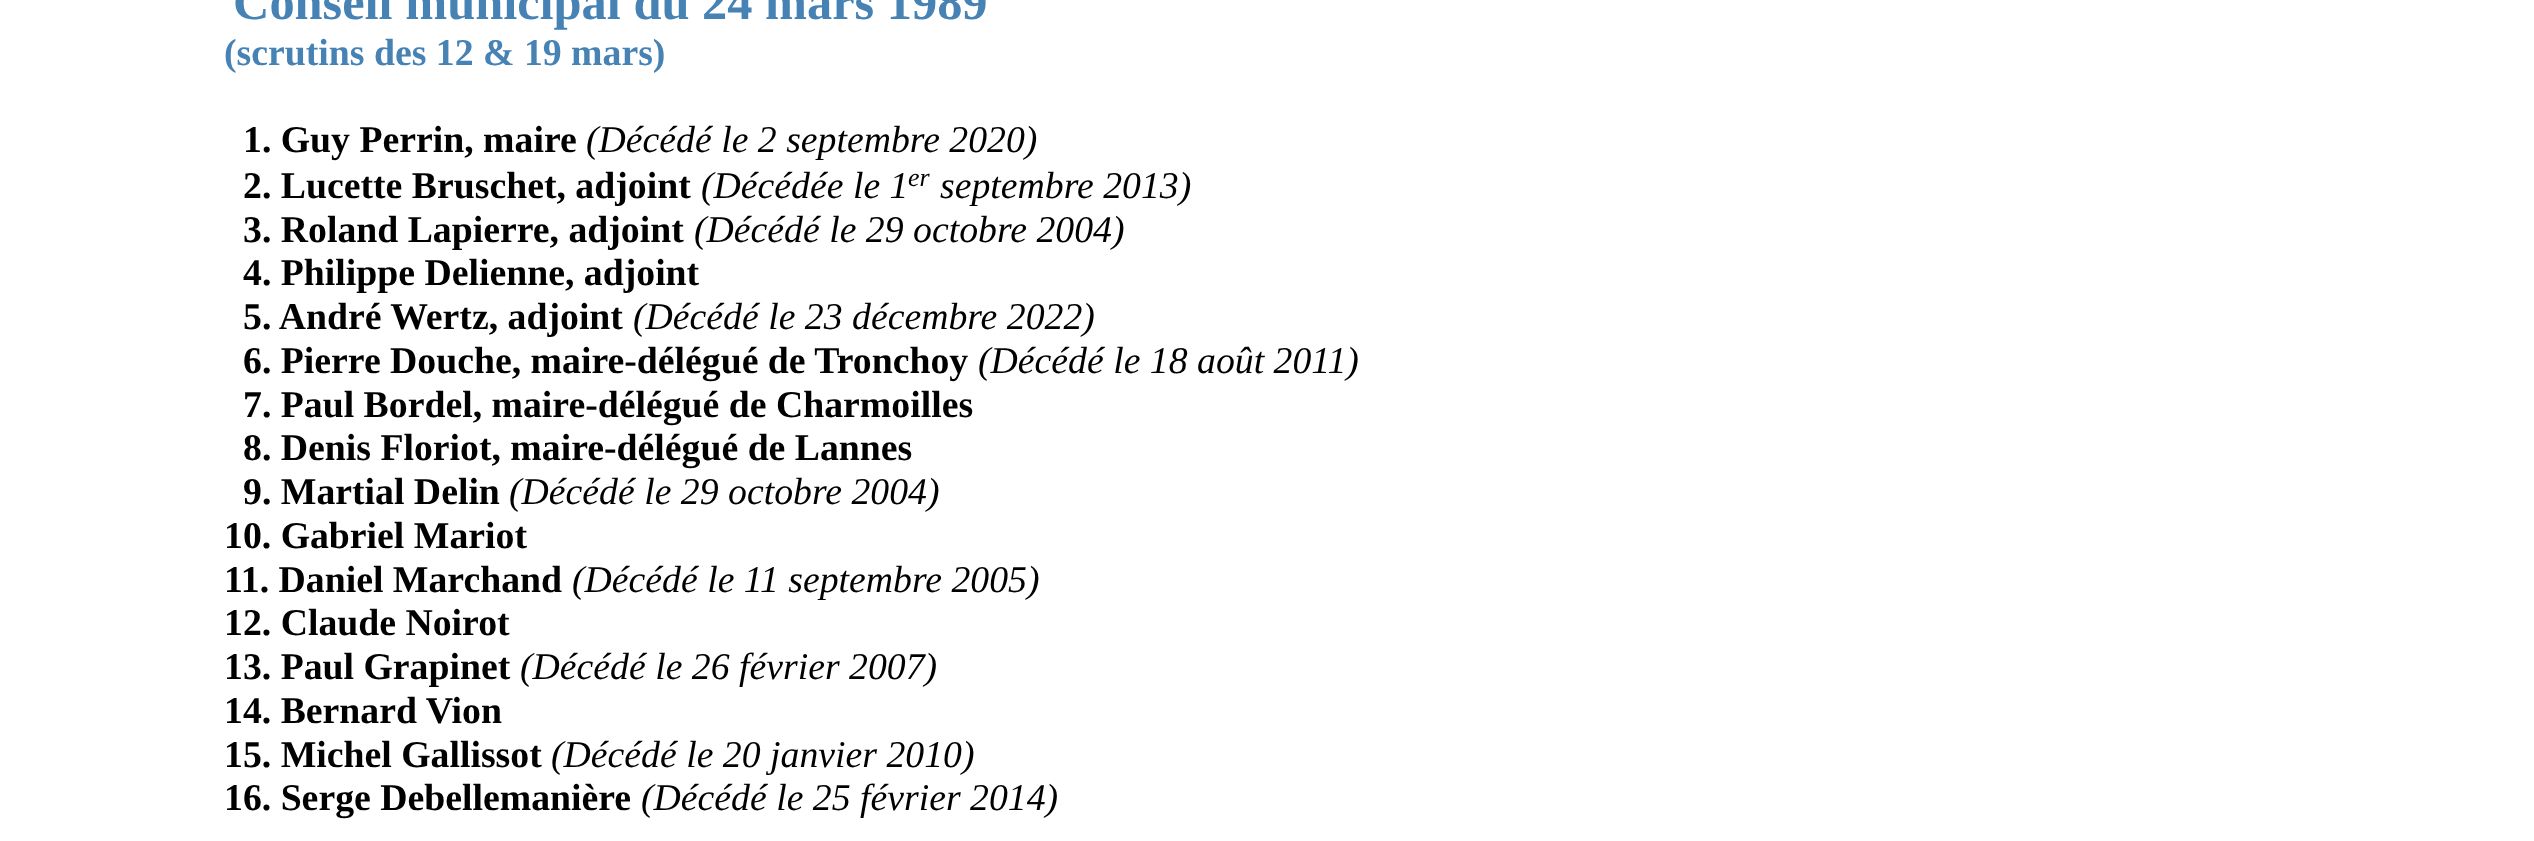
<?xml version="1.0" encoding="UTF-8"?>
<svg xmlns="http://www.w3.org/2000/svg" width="2534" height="841">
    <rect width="100%" height="100%" fill="#FFFFFF"/>
    <text x="233" y="19" font-family="Liberation Serif" font-size="50.4" font-weight="700" fill="#4682B4">Conseil municipal du 24 mars 1989</text>
    <text x="224" y="65" font-family="Liberation Serif" font-size="37.75" font-weight="700" fill="#4682B4">(scrutins des 12 &amp; 19 mars)</text>
    <text x="243" y="152" font-family="Liberation Serif" font-size="37.75" font-weight="700" fill="#000000">1. Guy Perrin, maire</text>
    <text x="586" y="152" font-family="Liberation Serif" font-size="37.75" font-style="italic" fill="#000000">(Décédé le 2 septembre 2020)</text>
    <text x="243" y="198" font-family="Liberation Serif" font-size="37.75" font-weight="700" fill="#000000">2. Lucette Bruschet, adjoint</text>
    <text x="701" y="198" font-family="Liberation Serif" font-size="37.75" font-style="italic" fill="#000000">(Décédée le 1</text>
    <text x="908" y="186" font-family="Liberation Serif" font-size="26" font-style="italic" fill="#000000">er</text>
    <text x="940" y="198" font-family="Liberation Serif" font-size="37.75" font-style="italic" fill="#000000">septembre 2013)</text>
    <text x="243" y="242" font-family="Liberation Serif" font-size="37.75" font-weight="700" fill="#000000">3. Roland Lapierre, adjoint</text>
    <text x="694" y="242" font-family="Liberation Serif" font-size="37.75" font-style="italic" fill="#000000">(Décédé le 29 octobre 2004)</text>
    <text font-family="Liberation Serif" font-size="37.75" font-weight="700" fill="#000000">
        <tspan x="243" y="285">4. Philippe Delienne, adjoint</tspan>
        <tspan x="243" y="329">5. André Wertz, adjoint</tspan>
    </text>
    <text x="633" y="329" font-family="Liberation Serif" font-size="37.75" font-style="italic" fill="#000000">(Décédé le 23 décembre 2022)</text>
    <text x="243" y="373" font-family="Liberation Serif" font-size="37.75" font-weight="700" fill="#000000">6. Pierre Douche, maire-délégué de Tronchoy</text>
    <text x="978" y="373" font-family="Liberation Serif" font-size="37.75" font-style="italic" fill="#000000">(Décédé le 18 août 2011)</text>
    <text font-family="Liberation Serif" font-size="37.75" font-weight="700" fill="#000000">
        <tspan x="243" y="417">7. Paul Bordel, maire-délégué de Charmoilles</tspan>
        <tspan x="243" y="460">8. Denis Floriot, maire-délégué de Lannes</tspan>
        <tspan x="243" y="504">9. Martial Delin</tspan>
    </text>
    <text x="509" y="504" font-family="Liberation Serif" font-size="37.75" font-style="italic" fill="#000000">(Décédé le 29 octobre 2004)</text>
    <text font-family="Liberation Serif" font-size="37.75" font-weight="700" fill="#000000">
        <tspan x="224" y="548">10. Gabriel Mariot</tspan>
        <tspan x="224" y="592">11. Daniel Marchand</tspan>
    </text>
    <text x="572" y="592" font-family="Liberation Serif" font-size="37.75" font-style="italic" fill="#000000">(Décédé le 11 septembre 2005)</text>
    <text font-family="Liberation Serif" font-size="37.75" font-weight="700" fill="#000000">
        <tspan x="224" y="635">12. Claude Noirot</tspan>
        <tspan x="224" y="679">13. Paul Grapinet</tspan>
    </text>
    <text x="520" y="679" font-family="Liberation Serif" font-size="37.75" font-style="italic" fill="#000000">(Décédé le 26 février 2007)</text>
    <text font-family="Liberation Serif" font-size="37.75" font-weight="700" fill="#000000">
        <tspan x="224" y="723">14. Bernard Vion</tspan>
        <tspan x="224" y="767">15. Michel Gallissot</tspan>
    </text>
    <text x="551" y="767" font-family="Liberation Serif" font-size="37.75" font-style="italic" fill="#000000">(Décédé le 20 janvier 2010)</text>
    <text x="224" y="810" font-family="Liberation Serif" font-size="37.75" font-weight="700" fill="#000000">16. Serge Debellemanière</text>
    <text x="641" y="810" font-family="Liberation Serif" font-size="37.75" font-style="italic" fill="#000000">(Décédé le 25 février 2014)</text>
</svg>
